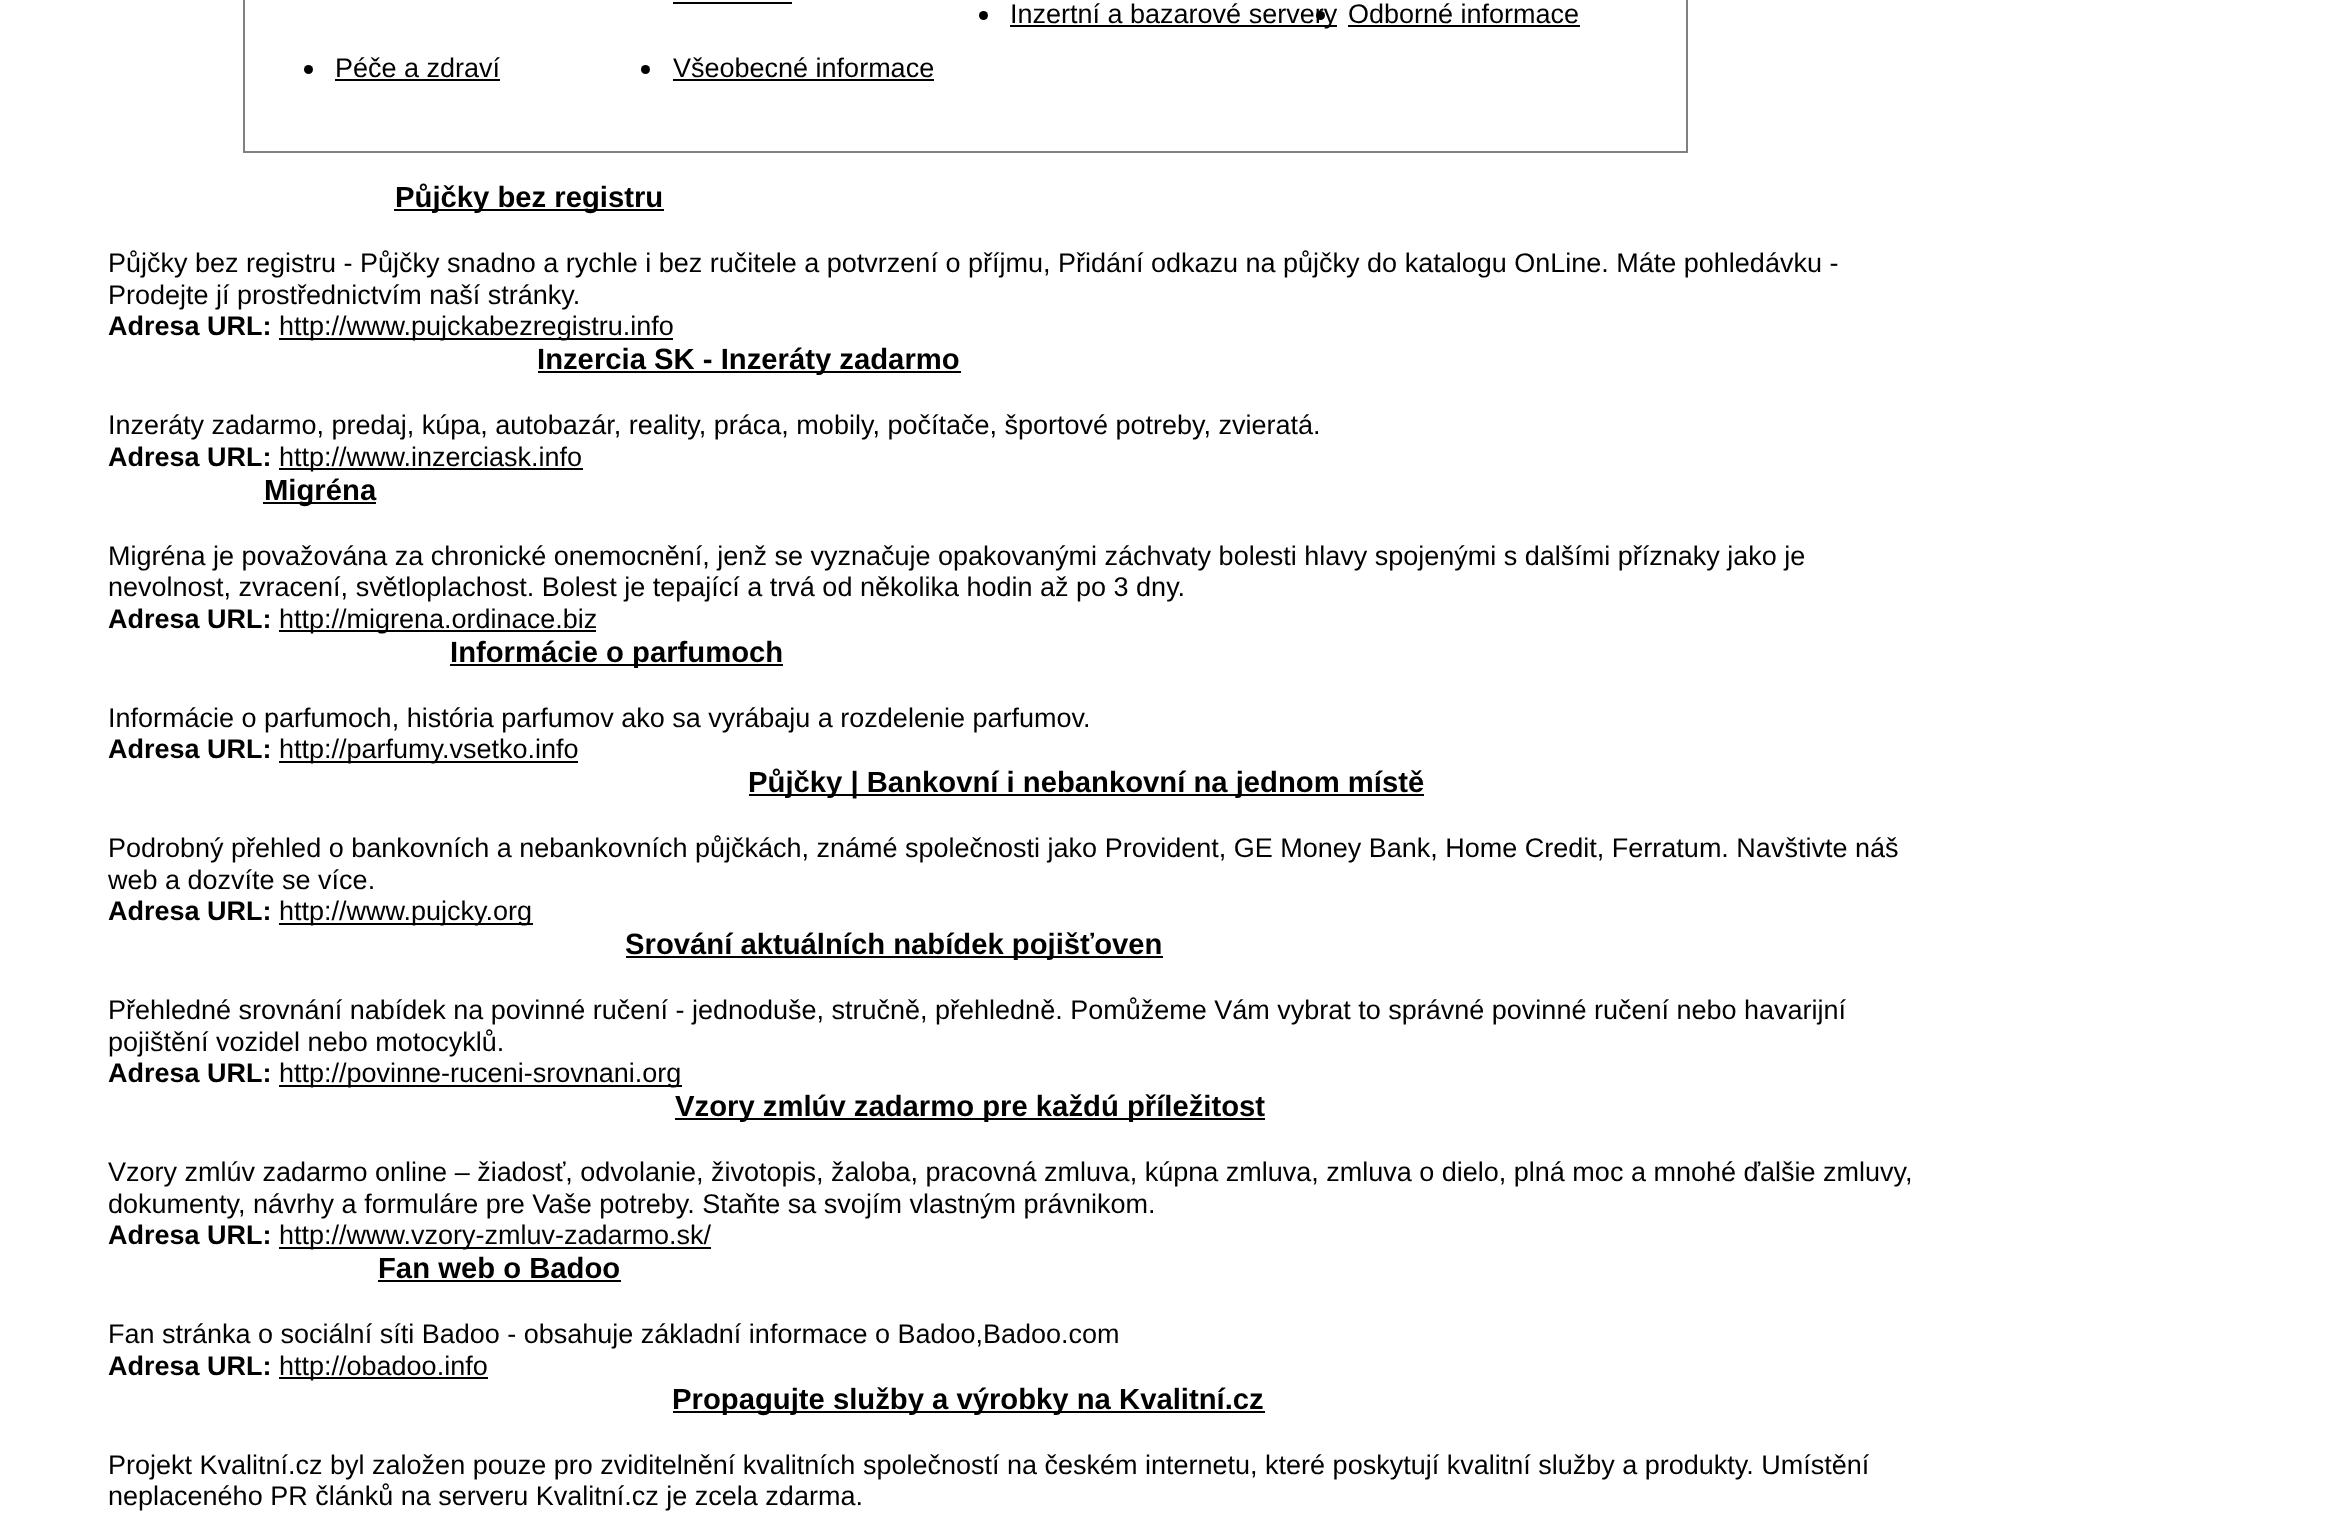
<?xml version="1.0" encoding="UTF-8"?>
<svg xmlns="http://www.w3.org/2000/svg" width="2330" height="1514">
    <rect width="100%" height="100%" fill="#FFFFFF"/>
    <rect x="244" y="-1" width="1443" height="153" fill="none" stroke="#808080" stroke-width="2"/>
    <rect x="673" y="2" width="119" height="2" fill="#000000"/>
    <circle cx="983.5" cy="15.5" r="4.5" fill="#000000"/>
    <rect x="1010" y="25" width="327" height="2" fill="#000000"/>
    <text x="1010" y="23" font-family="Liberation Sans" font-size="27" fill="#000000">Inzertní a bazarové servery</text>
    <circle cx="1320.5" cy="15.5" r="4.5" fill="#000000"/>
    <text x="1348" y="23" font-family="Liberation Sans" font-size="27" fill="#000000">Odborné informace</text>
    <rect x="1348" y="25" width="232" height="2" fill="#000000"/>
    <circle cx="308.5" cy="69.5" r="4.5" fill="#000000"/>
    <text x="335" y="77" font-family="Liberation Sans" font-size="27" fill="#000000">Péče a zdraví</text>
    <rect x="335" y="79" width="165" height="2" fill="#000000"/>
    <circle cx="645.5" cy="69.5" r="4.5" fill="#000000"/>
    <text x="673" y="77" font-family="Liberation Sans" font-size="27" fill="#000000">Všeobecné informace</text>
    <rect x="673" y="79" width="261" height="2" fill="#000000"/>
    <rect x="394" y="209" width="270" height="2" fill="#000000"/>
    <text x="395" y="207" font-family="Liberation Sans" font-size="29.25" font-weight="700" fill="#000000">Půjčky bez registru</text>
    <text font-family="Liberation Sans" font-size="27" fill="#000000">
        <tspan x="108" y="272">Půjčky bez registru - Půjčky snadno a rychle i bez ručitele a potvrzení o příjmu, Přidání odkazu na půjčky do katalogu OnLine. Máte pohledávku -</tspan>
        <tspan x="108" y="304">Prodejte jí prostřednictvím naší stránky.</tspan>
    </text>
    <text x="108" y="335" font-family="Liberation Sans" font-size="27" font-weight="700" fill="#000000">Adresa URL:</text>
    <rect x="279" y="338" width="394" height="2" fill="#000000"/>
    <text x="279" y="335" font-family="Liberation Sans" font-size="27" fill="#000000">http://www.pujckabezregistru.info</text>
    <rect x="538" y="371" width="423" height="2" fill="#000000"/>
    <text x="537" y="369" font-family="Liberation Sans" font-size="29.25" font-weight="700" fill="#000000">Inzercia SK - Inzeráty zadarmo</text>
    <text x="108" y="434" font-family="Liberation Sans" font-size="27" fill="#000000">Inzeráty zadarmo, predaj, kúpa, autobazár, reality, práca, mobily, počítače, športové potreby, zvieratá.</text>
    <text x="108" y="466" font-family="Liberation Sans" font-size="27" font-weight="700" fill="#000000">Adresa URL:</text>
    <rect x="279" y="468" width="304" height="2" fill="#000000"/>
    <text x="279" y="466" font-family="Liberation Sans" font-size="27" fill="#000000">http://www.inzerciask.info</text>
    <rect x="263" y="502" width="113" height="2" fill="#000000"/>
    <text x="264" y="500" font-family="Liberation Sans" font-size="29.25" font-weight="700" fill="#000000">Migréna</text>
    <text font-family="Liberation Sans" font-size="27" fill="#000000">
        <tspan x="108" y="565">Migréna je považována za chronické onemocnění, jenž se vyznačuje opakovanými záchvaty bolesti hlavy spojenými s dalšími příznaky jako je</tspan>
        <tspan x="108" y="596">nevolnost, zvracení, světloplachost. Bolest je tepající a trvá od několika hodin až po 3 dny.</tspan>
    </text>
    <text x="108" y="628" font-family="Liberation Sans" font-size="27" font-weight="700" fill="#000000">Adresa URL:</text>
    <rect x="279" y="630" width="317" height="2" fill="#000000"/>
    <text x="279" y="628" font-family="Liberation Sans" font-size="27" fill="#000000">http://migrena.ordinace.biz</text>
    <rect x="450" y="664" width="333" height="2" fill="#000000"/>
    <text x="450" y="662" font-family="Liberation Sans" font-size="29.25" font-weight="700" fill="#000000">Informácie o parfumoch</text>
    <text x="108" y="727" font-family="Liberation Sans" font-size="27" fill="#000000">Informácie o parfumoch, história parfumov ako sa vyrábaju a rozdelenie parfumov.</text>
    <text x="108" y="758" font-family="Liberation Sans" font-size="27" font-weight="700" fill="#000000">Adresa URL:</text>
    <rect x="279" y="761" width="299" height="2" fill="#000000"/>
    <text x="279" y="758" font-family="Liberation Sans" font-size="27" fill="#000000">http://parfumy.vsetko.info</text>
    <rect x="749" y="794" width="675" height="2" fill="#000000"/>
    <text x="748" y="792" font-family="Liberation Sans" font-size="29.25" font-weight="700" fill="#000000">Půjčky | Bankovní i nebankovní na jednom místě</text>
    <text font-family="Liberation Sans" font-size="27" fill="#000000">
        <tspan x="108" y="857">Podrobný přehled o bankovních a nebankovních půjčkách, známé společnosti jako Provident, GE Money Bank, Home Credit, Ferratum. Navštivte náš</tspan>
        <tspan x="108" y="889">web a dozvíte se více.</tspan>
    </text>
    <text x="108" y="920" font-family="Liberation Sans" font-size="27" font-weight="700" fill="#000000">Adresa URL:</text>
    <rect x="279" y="923" width="254" height="2" fill="#000000"/>
    <text x="279" y="920" font-family="Liberation Sans" font-size="27" fill="#000000">http://www.pujcky.org</text>
    <rect x="626" y="956" width="537" height="2" fill="#000000"/>
    <text x="625" y="954" font-family="Liberation Sans" font-size="29.25" font-weight="700" fill="#000000">Srování aktuálních nabídek pojišťoven</text>
    <text font-family="Liberation Sans" font-size="27" fill="#000000">
        <tspan x="108" y="1019">Přehledné srovnání nabídek na povinné ručení - jednoduše, stručně, přehledně. Pomůžeme Vám vybrat to správné povinné ručení nebo havarijní</tspan>
        <tspan x="108" y="1051">pojištění vozidel nebo motocyklů.</tspan>
    </text>
    <text x="108" y="1082" font-family="Liberation Sans" font-size="27" font-weight="700" fill="#000000">Adresa URL:</text>
    <rect x="279" y="1085" width="403" height="2" fill="#000000"/>
    <text x="279" y="1082" font-family="Liberation Sans" font-size="27" fill="#000000">http://povinne-ruceni-srovnani.org</text>
    <rect x="675" y="1118" width="590" height="2" fill="#000000"/>
    <text x="675" y="1116" font-family="Liberation Sans" font-size="29.25" font-weight="700" fill="#000000">Vzory zmlúv zadarmo pre každú příležitost</text>
    <text font-family="Liberation Sans" font-size="27" fill="#000000">
        <tspan x="108" y="1181">Vzory zmlúv zadarmo online – žiadosť, odvolanie, životopis, žaloba, pracovná zmluva, kúpna zmluva, zmluva o dielo, plná moc a mnohé ďalšie zmluvy,</tspan>
        <tspan x="108" y="1213">dokumenty, návrhy a formuláre pre Vaše potreby. Staňte sa svojím vlastným právnikom.</tspan>
    </text>
    <text x="108" y="1244" font-family="Liberation Sans" font-size="27" font-weight="700" fill="#000000">Adresa URL:</text>
    <rect x="279" y="1247" width="432" height="2" fill="#000000"/>
    <text x="279" y="1244" font-family="Liberation Sans" font-size="27" fill="#000000">http://www.vzory-zmluv-zadarmo.sk/</text>
    <text x="378" y="1278" font-family="Liberation Sans" font-size="29.25" font-weight="700" fill="#000000">Fan web o Badoo</text>
    <rect x="378" y="1280" width="243" height="2" fill="#000000"/>
    <text x="108" y="1343" font-family="Liberation Sans" font-size="27" fill="#000000">Fan stránka o sociální síti Badoo - obsahuje základní informace o Badoo,Badoo.com</text>
    <text x="108" y="1375" font-family="Liberation Sans" font-size="27" font-weight="700" fill="#000000">Adresa URL:</text>
    <rect x="279" y="1377" width="209" height="2" fill="#000000"/>
    <text x="279" y="1375" font-family="Liberation Sans" font-size="27" fill="#000000">http://obadoo.info</text>
    <rect x="673" y="1411" width="592" height="2" fill="#000000"/>
    <text x="672" y="1409" font-family="Liberation Sans" font-size="29.25" font-weight="700" fill="#000000">Propagujte služby a výrobky na Kvalitní.cz</text>
    <text font-family="Liberation Sans" font-size="27" fill="#000000">
        <tspan x="108" y="1474">Projekt Kvalitní.cz byl založen pouze pro zviditelnění kvalitních společností na českém internetu, které poskytují kvalitní služby a produkty. Umístění</tspan>
        <tspan x="108" y="1505">neplaceného PR článků na serveru Kvalitní.cz je zcela zdarma.</tspan>
    </text>
</svg>
